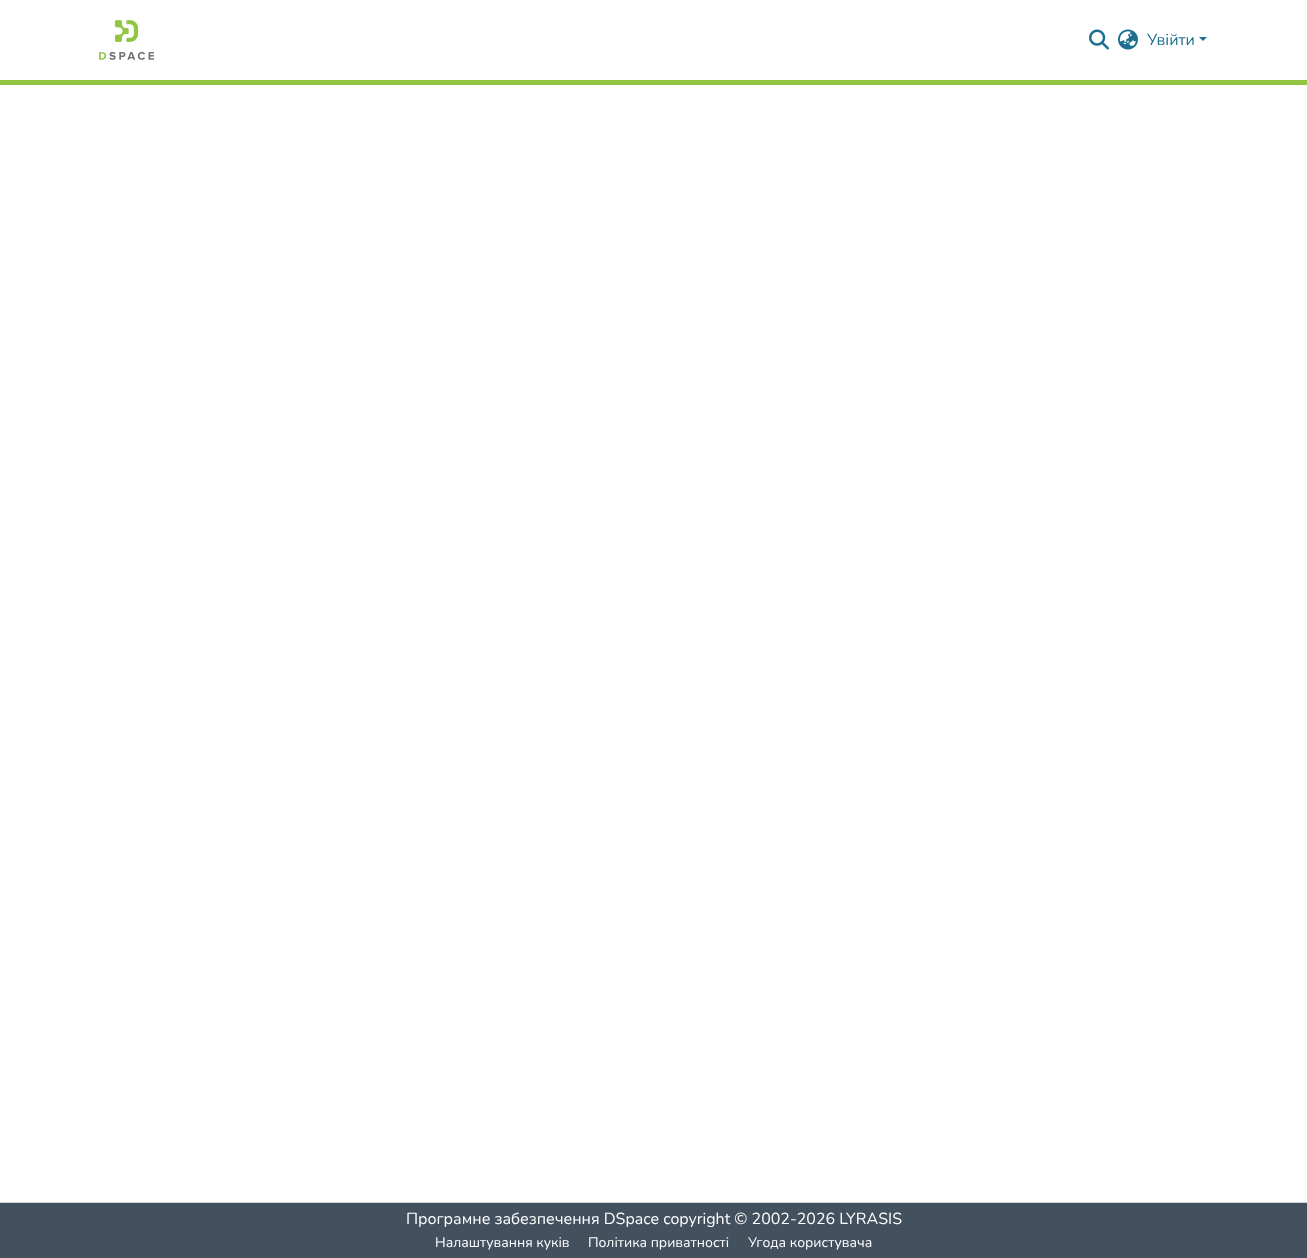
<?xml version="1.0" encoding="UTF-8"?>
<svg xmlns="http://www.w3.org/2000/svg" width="1307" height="1258">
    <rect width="100%" height="100%" fill="#FFFFFF"/>
    <rect x="0" y="80" width="1307" height="5" fill="#92C642"/>
    <image x="99" y="20" width="55" height="40" href="img_01.png"/>
    <image x="1089" y="29" width="20" height="21" href="img_02.png"/>
    <image x="1118" y="29" width="20" height="21" href="img_03.png"/>
    <text x="1147" y="45" font-family="Nunito" font-size="16" fill="#1E6F90">Увійти</text>
    <path d="M 1199 37 H 1207 L 1203 41 Z" fill="#1E6F90"/>
    <rect x="0" y="1203" width="1307" height="55" fill="#43515F"/>
    <rect x="0" y="1202" width="1307" height="1" fill="#CED4DA"/>
    <text x="406" y="1224" font-family="Nunito" font-size="16" fill="#FFFFFF">Програмне забезпечення DSpace copyright © 2002-2026 LYRASIS</text>
    <text x="435" y="1247" font-family="Nunito" font-size="14" fill="#FFFFFF">Налаштування куків</text>
    <rect x="578" y="1231" width="1" height="23" fill="#495057"/>
    <text x="588" y="1247" font-family="Nunito" font-size="14" fill="#FFFFFF">Політика приватності</text>
    <rect x="738" y="1231" width="1" height="23" fill="#495057"/>
    <text x="748" y="1247" font-family="Nunito" font-size="14" fill="#FFFFFF">Угода користувача</text>
</svg>
